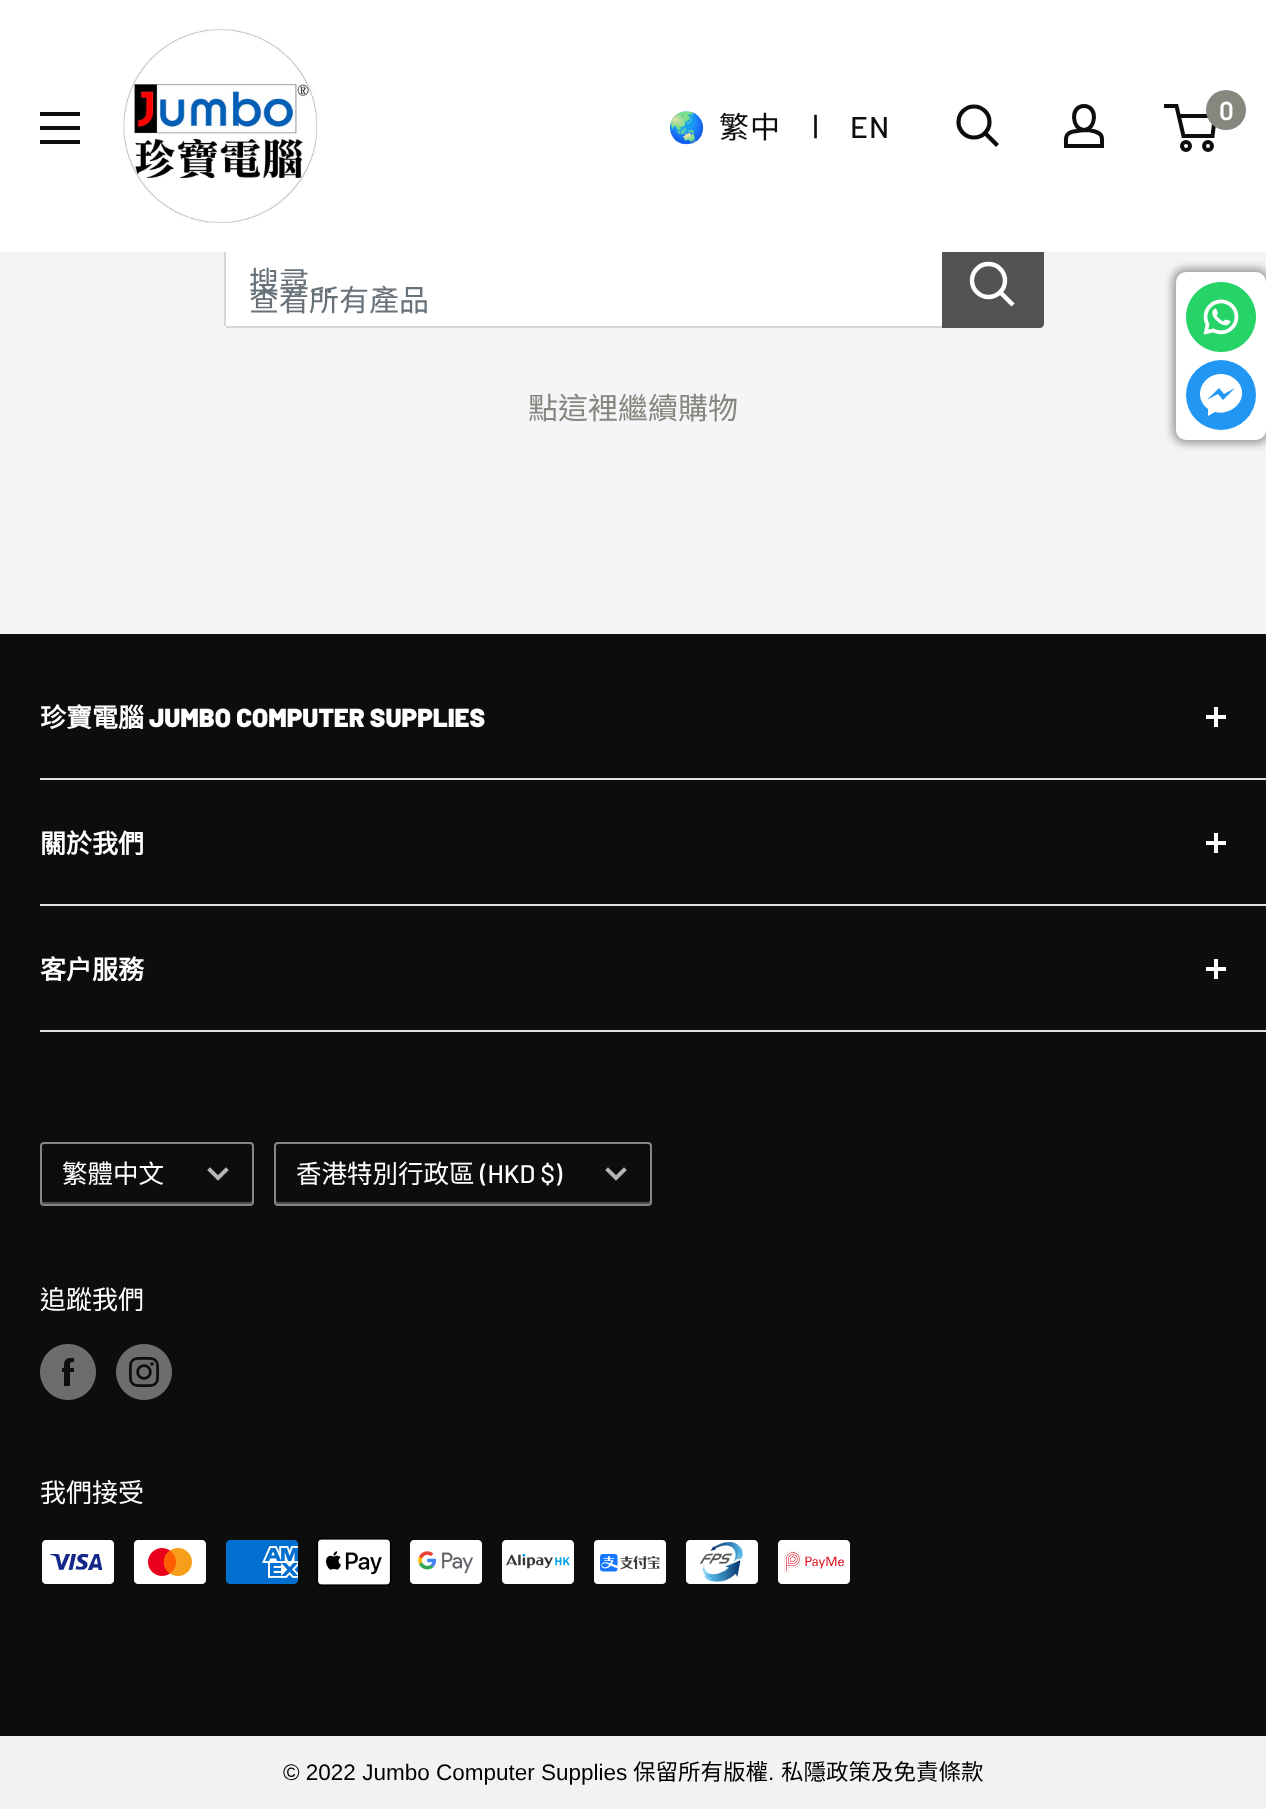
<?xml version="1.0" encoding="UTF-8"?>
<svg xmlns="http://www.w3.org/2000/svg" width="1266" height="1809">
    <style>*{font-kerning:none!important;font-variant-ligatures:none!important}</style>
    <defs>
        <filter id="blur1" x="-50%" y="-200%" width="200%" height="500%"><feGaussianBlur stdDeviation="4"/></filter>
    </defs>
    <rect width="100%" height="100%" fill="#F3F5F6"/>
    <path d="M 228 232 H 942 V 328 H 228 C 226 328 224 326 224 324 V 236 C 224 234 226 232 228 232 Z" fill="#FFFFFF"/>
    <path d="M 942 232 H 1040 C 1042 232 1044 234 1044 236 V 324 C 1044 326 1042 328 1040 328 H 942 Z" fill="#535353"/>
    <rect x="0" y="0" width="1266" height="252" fill="#FFFFFF"/>
    <path d="M 40 140 H 80 V 144 H 40 Z M 40 112 H 80 V 116 H 40 Z M 40 126 H 80 V 130 H 40 Z" fill="#0D0D0C" fill-rule="evenodd"/>
    <image x="123" y="29" width="195" height="194" href="img_01.png"/>
    <text x="668" y="138" font-family="Noto Color Emoji" font-size="30" letter-spacing="1" fill="#0D0D0C">🌏</text>
    <text x="719" y="138" font-family="Noto Sans CJK TC" font-size="30" letter-spacing="1" fill="#0D0D0C">繁中</text>
    <text x="813" y="136" font-family="Barlow" font-size="28" font-weight="500" fill="#0D0D0C">|</text>
    <text x="850" y="138" font-family="Barlow" font-size="30" font-weight="500" letter-spacing="1" fill="#0D0D0C">EN</text>
    <path d="M 996 144 L 985.5 133.5" fill="none" stroke="#0D0D0C" stroke-width="4.2" stroke-linecap="square"/>
    <circle cx="974" cy="122" r="15.5" fill="none" stroke="#0D0D0C" stroke-width="4.2"/>
    <path d="M 1084 130 C 1088 130 1091.5 130.5 1095 131.5 C 1103.5 134 1102 138.5 1102 146 H 1066 C 1066 138 1064.5 133.5 1073.5 131.5 Z M 1084 130 C 1072 130 1069.5 106 1084 106 C 1098.5 106 1096 130 1084 130 Z" fill="none" stroke="#0D0D0C" stroke-width="4"/>
    <circle cx="1186" cy="146" r="4" fill="none" stroke="#0D0D0C" stroke-width="4"/>
    <circle cx="1208" cy="146" r="4" fill="none" stroke="#0D0D0C" stroke-width="4"/>
    <path d="M 1178.5 116 H 1215 L 1212.5 136 H 1183.5 L 1176.5 106 H 1164" fill="none" stroke="#0D0D0C" stroke-width="4"/>
    <circle cx="1226" cy="110" r="20" fill="#86877E"/>
    <text x="1219" y="120" font-family="Barlow" font-size="26" font-weight="600" fill="#FFFFFF">0</text>
    <text font-family="Noto Sans CJK TC" font-size="30" fill="#677279">
        <tspan x="249" y="293">搜尋</tspan>
        <tspan x="249" y="311">查看所有產品</tspan>
    </text>
    <text x="309" y="293" font-family="Barlow" font-size="30" font-weight="500" fill="#677279">…</text>
    <rect x="226" y="326" width="716" height="2" fill="#D4D6D8"/>
    <rect x="224" y="252" width="2" height="74" fill="#D4D6D8"/>
    <path d="M 1011.5 303.5 L 1000.5 292.5" fill="none" stroke="#FFFFFF" stroke-width="4.4" stroke-linecap="square"/>
    <circle cx="988.5" cy="280.5" r="16.5" fill="none" stroke="#FFFFFF" stroke-width="4.4"/>
    <text x="528" y="419" font-family="Noto Sans CJK TC" font-size="30" fill="#86877E">點這裡繼續購物</text>
    <rect x="1172" y="268" width="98" height="176" rx="14" fill="#9E9E9E" filter="url(#blur1)"/>
    <rect x="1176" y="272" width="90" height="168" rx="10" fill="#FFFFFF"/>
    <image x="1186" y="282" width="70" height="70" href="img_02.png"/>
    <circle cx="1221" cy="395" r="35" fill="#2196F3"/>
    <path d="M 1221 374 C 1202 374 1192 397 1208 409 V 416 L 1215 412 C 1234 417 1252 395 1236 380 C 1232 376 1226 374 1221 374 Z M 1223 400 L 1218 394 L 1207 400 L 1219 388 L 1224 394 L 1235 388 Z" fill="#FFFFFF"/>
    <rect x="0" y="634" width="1266" height="1102" fill="#0D0D0C"/>
    <rect x="40" y="778" width="1226" height="2" fill="#E1E3E4"/>
    <text x="40" y="727" font-family="Noto Sans CJK TC" font-size="26" font-weight="700" fill="#FFFFFF">珍寶電腦</text>
    <text x="149" y="727" font-family="Barlow" font-size="26" font-weight="900" fill="#FFFFFF">JUMBO COMPUTER SUPPLIES</text>
    <rect x="1214" y="707" width="4" height="20" fill="#FFFFFF"/>
    <rect x="1206" y="715" width="20" height="4" fill="#FFFFFF"/>
    <rect x="40" y="904" width="1226" height="2" fill="#E1E3E4"/>
    <text x="40" y="853" font-family="Noto Sans CJK TC" font-size="26" font-weight="700" fill="#FFFFFF">關於我們</text>
    <rect x="1214" y="833" width="4" height="20" fill="#FFFFFF"/>
    <rect x="1206" y="841" width="20" height="4" fill="#FFFFFF"/>
    <rect x="40" y="1030" width="1226" height="2" fill="#E1E3E4"/>
    <text x="40" y="979" font-family="Noto Sans CJK TC" font-size="26" font-weight="700" fill="#FFFFFF">客户服務</text>
    <rect x="1214" y="959" width="4" height="20" fill="#FFFFFF"/>
    <rect x="1206" y="967" width="20" height="4" fill="#FFFFFF"/>
    <path d="M 42 1200 V 1202 C 42 1203 43 1204 44 1204 H 250 C 251 1204 252 1203 252 1202 V 1200 C 252 1201 251 1202 250 1202 H 44 C 43 1202 42 1201 42 1200 Z" fill="#4D4D4D"/>
    <rect x="41" y="1143" width="212" height="62" rx="3" fill="none" stroke="#FFFFFF" stroke-opacity="0.5" stroke-width="2"/>
    <text x="62" y="1183" font-family="Noto Sans CJK TC" font-size="25.5" fill="#FFFFFF">繁體中文</text>
    <path d="M 226 1170 L 218 1178 L 210 1170" fill="none" stroke="#B6B6B6" stroke-width="4" stroke-linecap="square"/>
    <path d="M 276 1200 V 1202 C 276 1203 277 1204 278 1204 H 648 C 649 1204 650 1203 650 1202 V 1200 C 650 1201 649 1202 648 1202 H 278 C 277 1202 276 1201 276 1200 Z" fill="#4D4D4D"/>
    <rect x="275" y="1143" width="376" height="62" rx="3" fill="none" stroke="#FFFFFF" stroke-opacity="0.5" stroke-width="2"/>
    <text x="296" y="1183" font-family="Noto Sans CJK TC" font-size="25.5" fill="#FFFFFF">香港特別行政區</text>
    <text x="480" y="1183" font-family="Barlow" font-size="25.5" font-weight="500" fill="#FFFFFF">(HKD $)</text>
    <path d="M 624 1170 L 616 1178 L 608 1170" fill="none" stroke="#B6B6B6" stroke-width="4" stroke-linecap="square"/>
    <text x="40" y="1309" font-family="Noto Sans CJK TC" font-size="26" fill="#FFFFFF">追蹤我們</text>
    <image x="40" y="1344" width="56" height="56" href="img_03.png"/>
    <image x="116" y="1344" width="56" height="56" href="img_04.png"/>
    <text x="40" y="1502" font-family="Noto Sans CJK TC" font-size="26" fill="#FFFFFF">我們接受</text>
    <image x="42" y="1540" width="72" height="44" href="img_05.png"/>
    <image x="134" y="1540" width="72" height="44" href="img_06.png"/>
    <image x="226" y="1540" width="72" height="44" href="img_07.png"/>
    <image x="316" y="1538" width="76" height="48" href="img_08.png"/>
    <image x="410" y="1540" width="72" height="44" href="img_09.png"/>
    <image x="502" y="1540" width="72" height="44" href="img_10.png"/>
    <image x="594" y="1540" width="72" height="44" href="img_11.png"/>
    <image x="686" y="1540" width="72" height="44" href="img_12.png"/>
    <image x="778" y="1540" width="72" height="44" href="img_13.png"/>
    <rect x="0" y="1736" width="1266" height="73" fill="#F2F2F2"/>
    <text x="283" y="1780" font-family="Liberation Sans" font-size="22.5" fill="#000000">© 2022 Jumbo Computer Supplies</text>
    <text x="633" y="1780" font-family="Noto Sans CJK TC" font-size="22.5" fill="#000000">保留所有版權</text>
    <text x="768" y="1780" font-family="Liberation Sans" font-size="22.5" fill="#000000">.</text>
    <text x="781" y="1780" font-family="Noto Sans CJK TC" font-size="22.5" fill="#000000">私隱政策及免責條款</text>
</svg>
